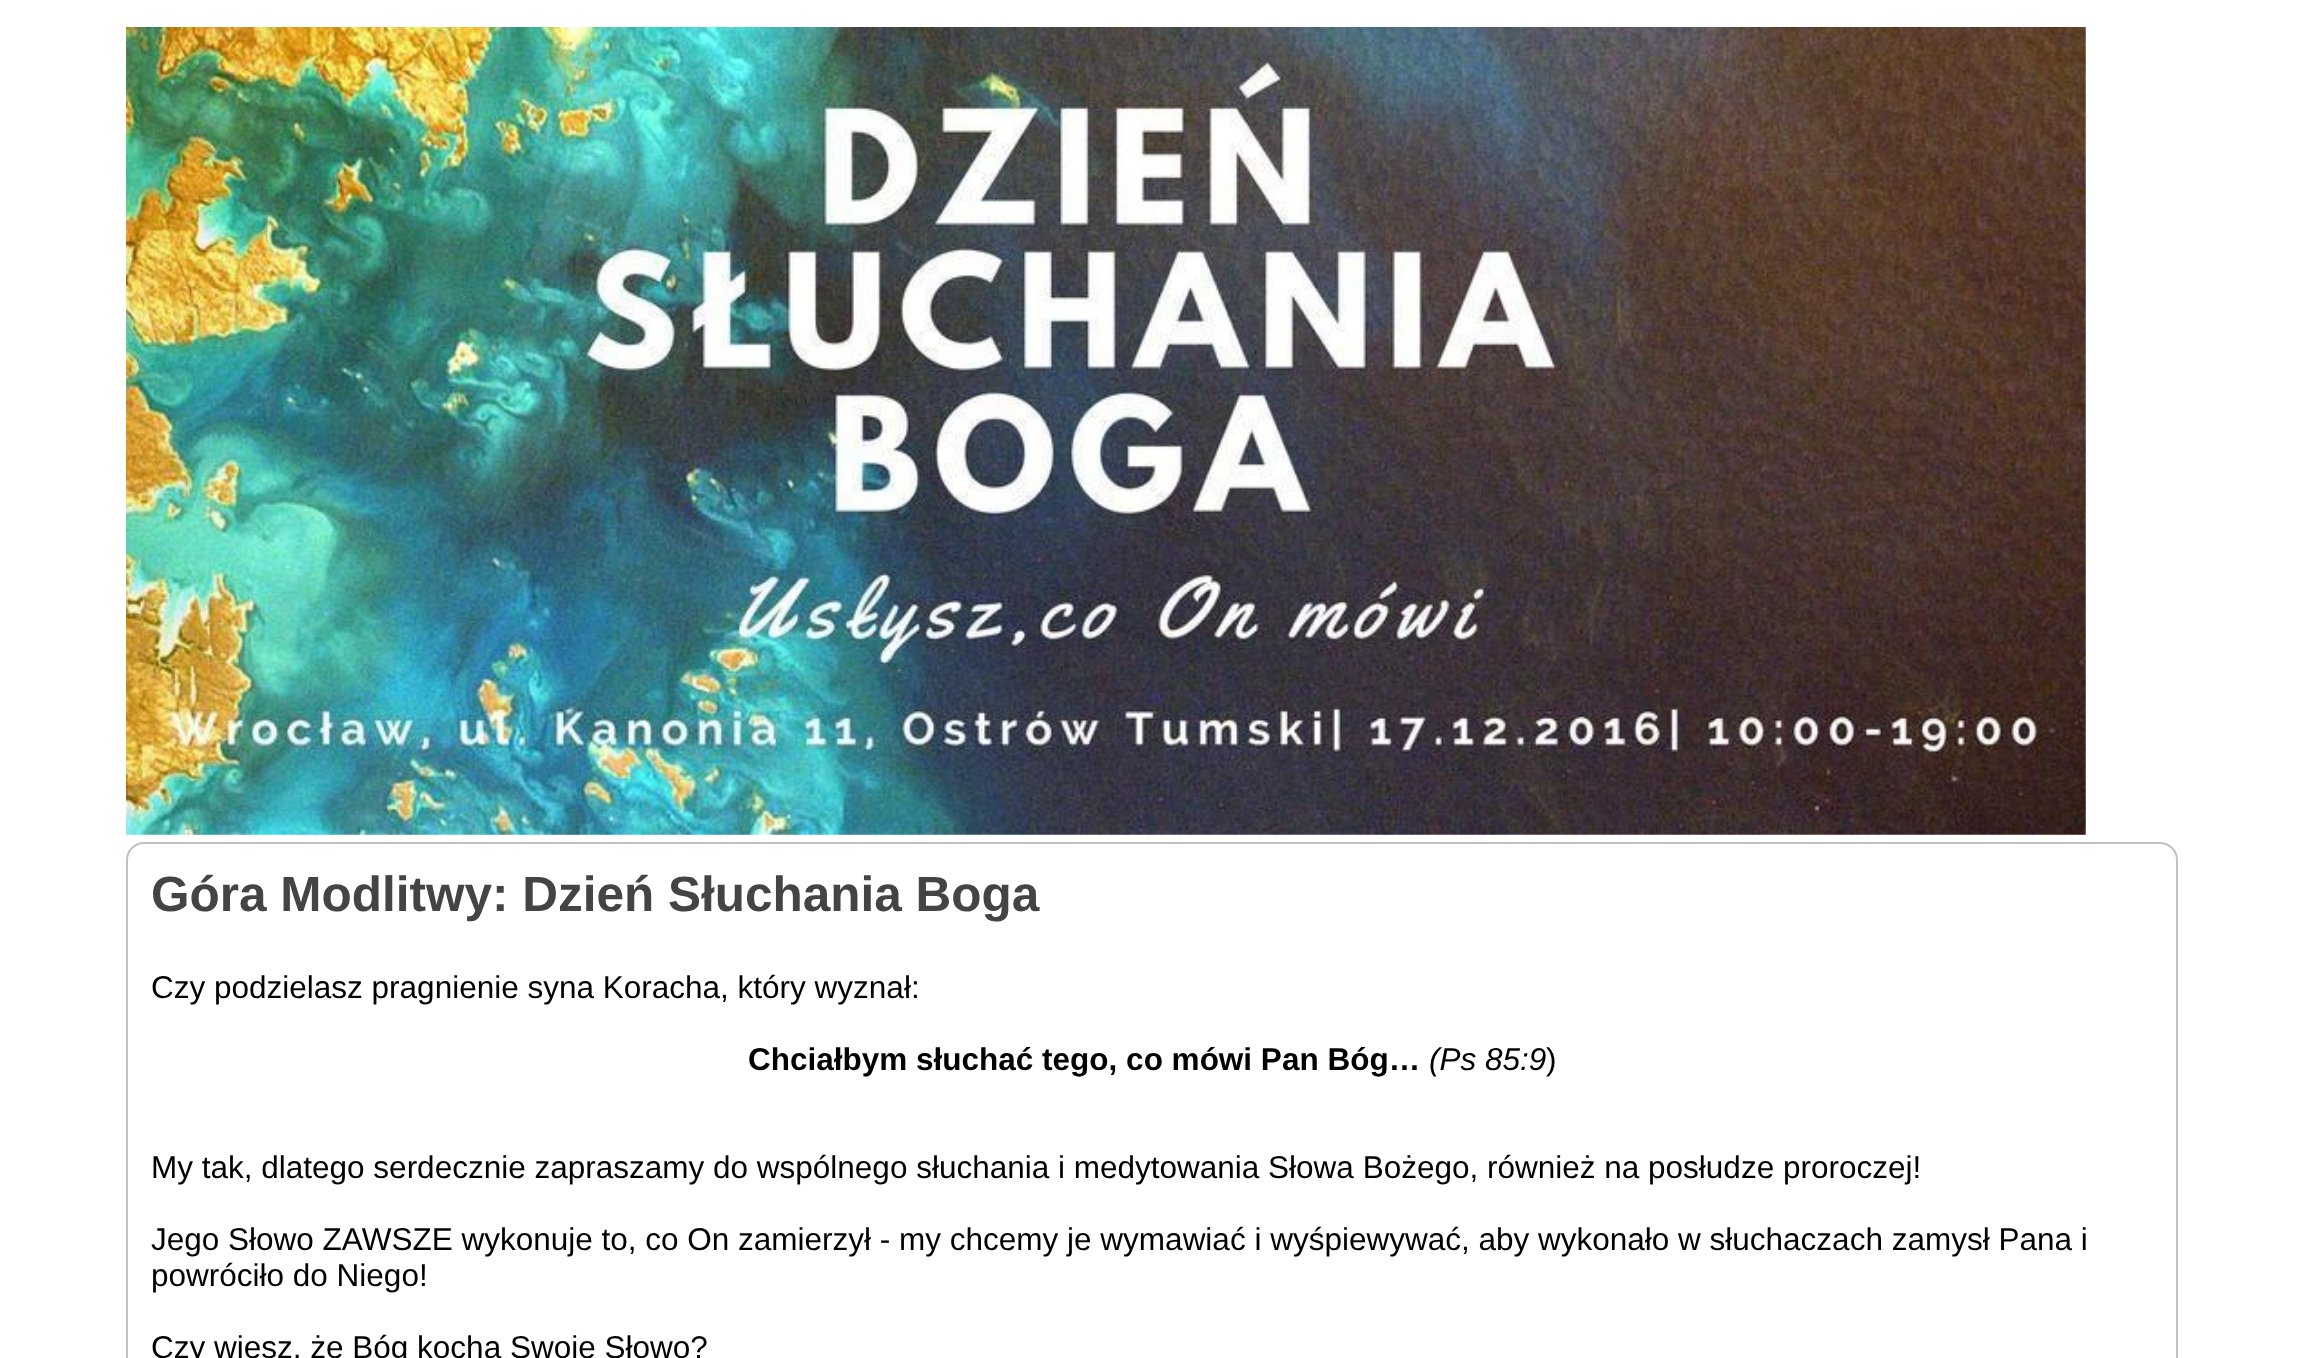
<?xml version="1.0" encoding="UTF-8"?>
<svg xmlns="http://www.w3.org/2000/svg" width="2303" height="1358">
    <rect width="100%" height="100%" fill="#FFFFFF"/>
    <image x="126" y="27" width="1960" height="808" href="img_01.png"/>
    <rect x="127" y="843" width="2050" height="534" rx="17" fill="none" stroke="#C1C1C1" stroke-width="2"/>
    <text x="151" y="911" font-family="Liberation Sans" font-size="49.5" font-weight="700" fill="#444444">Góra Modlitwy: Dzień Słuchania Boga</text>
    <text x="151" y="998" font-family="Liberation Sans" font-size="31.5" fill="#000000">Czy podzielasz pragnienie syna Koracha, który wyznał:</text>
    <text x="748" y="1070" font-family="Liberation Sans" font-size="31.5" font-weight="700" fill="#000000">Chciałbym słuchać tego, co mówi Pan Bóg…</text>
    <text x="1429" y="1070" font-family="Liberation Sans" font-size="31.5" font-style="italic" fill="#000000">(Ps 85:9</text>
    <text x="1546" y="1070" font-family="Liberation Sans" font-size="31.5" fill="#000000">)</text>
    <text x="151" y="1178" font-family="Liberation Sans" font-size="31.5" fill="#000000">My tak, dlatego serdecznie zapraszamy do wspólnego słuchania i medytowania Słowa Bożego, również na posłudze proroczej!</text>
    <text font-family="Liberation Sans" font-size="31.5" fill="#000000">
        <tspan x="151" y="1250">Jego Słowo ZAWSZE wykonuje to, co On zamierzył - my chcemy je wymawiać i wyśpiewywać, aby wykonało w słuchaczach zamysł Pana i</tspan>
        <tspan x="151" y="1286">powróciło do Niego!</tspan>
    </text>
    <text x="151" y="1358" font-family="Liberation Sans" font-size="31.5" fill="#000000">Czy wiesz, że Bóg kocha Swoje Słowo?</text>
</svg>
